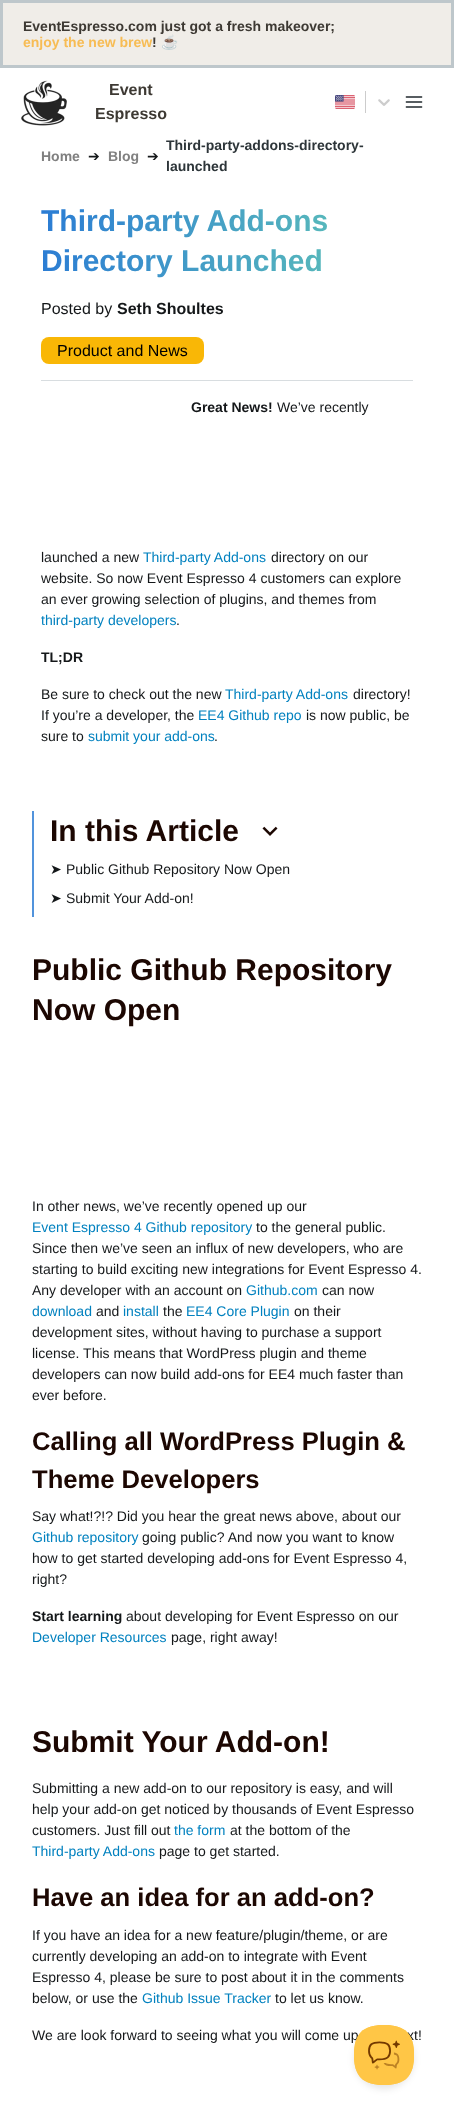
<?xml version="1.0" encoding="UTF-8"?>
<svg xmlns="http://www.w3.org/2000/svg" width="454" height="2125">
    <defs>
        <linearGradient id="g1" gradientUnits="userSpaceOnUse" x1="39" y1="228" x2="415" y2="254"><stop offset="0" stop-color="#2B7CD4"/><stop offset="1" stop-color="#64C9B4"/></linearGradient>
        <filter id="blur1" x="-50%" y="-200%" width="200%" height="500%"><feGaussianBlur stdDeviation="3.5"/></filter>
    </defs>
    <rect width="100%" height="100%" fill="#FFFFFF"/>
    <rect x="1.5" y="1.5" width="451" height="65" fill="#F0EDE8" stroke="#BEC7CB" stroke-width="3"/>
    <text x="23" y="31" font-family="Liberation Sans" font-size="14" font-weight="700" fill="#3D3933">EventEspresso.com just got a fresh makeover;</text>
    <text x="23" y="47" font-family="Liberation Sans" font-size="14" font-weight="700" fill="#F7BC54">enjoy the new brew</text>
    <text x="152" y="47" font-family="Liberation Sans" font-size="14" font-weight="700" fill="#3D3933">!</text>
    <text x="161" y="47" font-family="Noto Color Emoji" font-size="14" font-weight="700" fill="#3D3933">☕️</text>
    <image x="21" y="80" width="46" height="46" href="img_01.png"/>
    <text x="109" y="95" font-family="Liberation Sans" font-size="16" font-weight="700" fill="#3D3933">Event</text>
    <text x="95" y="119" font-family="Liberation Sans" font-size="16" font-weight="700" fill="#3D3933">Espresso</text>
    <image x="335" y="95" width="20" height="14" href="img_02.png"/>
    <rect x="365" y="91" width="1" height="22" fill="#CCCCCC"/>
    <image x="378" y="99" width="12" height="7" href="img_03.png"/>
    <image x="405" y="96" width="18" height="12" href="img_04.png"/>
    <text x="41" y="161" font-family="Liberation Sans" font-size="14" font-weight="700" fill="#808080">Home</text>
    <text x="88" y="161" font-family="DejaVu Sans" font-size="14" fill="#141719">➔</text>
    <text x="108" y="161" font-family="Liberation Sans" font-size="14" font-weight="700" fill="#808080">Blog</text>
    <text x="147" y="161" font-family="DejaVu Sans" font-size="14" fill="#141719">➔</text>
    <text font-family="Liberation Sans" font-size="14" font-weight="700" fill="#2D3539">
        <tspan x="166" y="150">Third-party-addons-directory-</tspan>
        <tspan x="166" y="171">launched</tspan>
    </text>
    <text font-family="Liberation Sans" font-size="30" font-weight="700" fill="url(#g1)">
        <tspan x="41" y="231">Third-party Add-ons</tspan>
        <tspan x="41" y="271">Directory Launched</tspan>
    </text>
    <text x="41" y="314" font-family="Liberation Sans" font-size="16" fill="#141719">Posted by</text>
    <text x="117" y="314" font-family="Liberation Sans" font-size="16" font-weight="700" fill="#141719">Seth Shoultes</text>
    <rect x="41" y="337" width="163" height="27" rx="8" fill="#F9B706"/>
    <text x="57" y="356" font-family="Liberation Sans" font-size="16" fill="#000000">Product and News</text>
    <rect x="41" y="380" width="372" height="1" fill="#D8DDE0"/>
    <text x="191" y="412" font-family="Liberation Sans" font-size="14" font-weight="700" fill="#141719">Great News!</text>
    <text x="277" y="412" font-family="Liberation Sans" font-size="14" fill="#141719">We’ve recently</text>
    <text x="41" y="562" font-family="Liberation Sans" font-size="14" fill="#141719">launched a new</text>
    <text x="143" y="562" font-family="Liberation Sans" font-size="14" fill="#0081BF">Third-party Add-ons</text>
    <text x="271" y="562" font-family="Liberation Sans" font-size="14" fill="#141719">directory on our</text>
    <text font-family="Liberation Sans" font-size="14" fill="#141719">
        <tspan x="41" y="583">website. So now Event Espresso 4 customers can explore</tspan>
        <tspan x="41" y="604">an ever growing selection of plugins, and themes from</tspan>
    </text>
    <text x="41" y="625" font-family="Liberation Sans" font-size="14" fill="#0081BF">third-party developers</text>
    <text x="176" y="625" font-family="Liberation Sans" font-size="14" fill="#141719">.</text>
    <text x="41" y="662" font-family="Liberation Sans" font-size="14" font-weight="700" fill="#141719">TL;DR</text>
    <text x="41" y="699" font-family="Liberation Sans" font-size="14" fill="#141719">Be sure to check out the new</text>
    <text x="225" y="699" font-family="Liberation Sans" font-size="14" fill="#0081BF">Third-party Add-ons</text>
    <text x="353" y="699" font-family="Liberation Sans" font-size="14" fill="#141719">directory!</text>
    <text x="41" y="720" font-family="Liberation Sans" font-size="14" fill="#141719">If you’re a developer, the</text>
    <text x="198" y="720" font-family="Liberation Sans" font-size="14" fill="#0081BF">EE4 Github repo</text>
    <text x="306" y="720" font-family="Liberation Sans" font-size="14" fill="#141719">is now public, be</text>
    <text x="41" y="741" font-family="Liberation Sans" font-size="14" fill="#141719">sure to</text>
    <text x="88" y="741" font-family="Liberation Sans" font-size="14" fill="#0081BF">submit your add-ons</text>
    <text x="214" y="741" font-family="Liberation Sans" font-size="14" fill="#141719">.</text>
    <rect x="32" y="811" width="2" height="106" fill="#5193DC"/>
    <text x="50" y="841" font-family="Liberation Sans" font-size="30" font-weight="700" fill="#1C0702">In this Article</text>
    <image x="262" y="826" width="16" height="10" href="img_05.png"/>
    <text x="50" y="874" font-family="DejaVu Sans" font-size="14" fill="#141719">➤</text>
    <text x="66" y="874" font-family="Liberation Sans" font-size="14" fill="#141719">Public Github Repository Now Open</text>
    <text x="50" y="903" font-family="DejaVu Sans" font-size="14" fill="#141719">➤</text>
    <text x="66" y="903" font-family="Liberation Sans" font-size="14" fill="#141719">Submit Your Add-on!</text>
    <text font-family="Liberation Sans" font-size="30" font-weight="700" fill="#1C0702">
        <tspan x="32" y="980">Public Github Repository</tspan>
        <tspan x="32" y="1020">Now Open</tspan>
    </text>
    <text x="32" y="1211" font-family="Liberation Sans" font-size="14" fill="#141719">In other news, we’ve recently opened up our</text>
    <text x="32" y="1232" font-family="Liberation Sans" font-size="14" fill="#0081BF">Event Espresso 4 Github repository</text>
    <text x="256" y="1232" font-family="Liberation Sans" font-size="14" fill="#141719">to the general public.</text>
    <text font-family="Liberation Sans" font-size="14" fill="#141719">
        <tspan x="32" y="1253">Since then we’ve seen an influx of new developers, who are</tspan>
        <tspan x="32" y="1274">starting to build exciting new integrations for Event Espresso 4.</tspan>
        <tspan x="32" y="1295">Any developer with an account on</tspan>
    </text>
    <text x="246" y="1295" font-family="Liberation Sans" font-size="14" fill="#0081BF">Github.com</text>
    <text x="322" y="1295" font-family="Liberation Sans" font-size="14" fill="#141719">can now</text>
    <text x="32" y="1316" font-family="Liberation Sans" font-size="14" fill="#0081BF">download</text>
    <text x="96" y="1316" font-family="Liberation Sans" font-size="14" fill="#141719">and</text>
    <text x="123" y="1316" font-family="Liberation Sans" font-size="14" fill="#0081BF">install</text>
    <text x="163" y="1316" font-family="Liberation Sans" font-size="14" fill="#141719">the</text>
    <text x="186" y="1316" font-family="Liberation Sans" font-size="14" fill="#0081BF">EE4 Core Plugin</text>
    <text x="294" y="1316" font-family="Liberation Sans" font-size="14" fill="#141719">on their</text>
    <text font-family="Liberation Sans" font-size="14" fill="#141719">
        <tspan x="32" y="1337">development sites, without having to purchase a support</tspan>
        <tspan x="32" y="1358">license. This means that WordPress plugin and theme</tspan>
        <tspan x="32" y="1379">developers can now build add-ons for EE4 much faster than</tspan>
        <tspan x="32" y="1400">ever before.</tspan>
    </text>
    <text font-family="Liberation Sans" font-size="25.6" font-weight="700" fill="#1C0702">
        <tspan x="32" y="1450">Calling all WordPress Plugin &amp;</tspan>
        <tspan x="32" y="1488">Theme Developers</tspan>
    </text>
    <text x="32" y="1521" font-family="Liberation Sans" font-size="14" fill="#141719">Say what!?!? Did you hear the great news above, about our</text>
    <text x="32" y="1542" font-family="Liberation Sans" font-size="14" fill="#0081BF">Github repository</text>
    <text x="142" y="1542" font-family="Liberation Sans" font-size="14" fill="#141719">going public? And now you want to know</text>
    <text font-family="Liberation Sans" font-size="14" fill="#141719">
        <tspan x="32" y="1563">how to get started developing add-ons for Event Espresso 4,</tspan>
        <tspan x="32" y="1584">right?</tspan>
    </text>
    <text x="32" y="1621" font-family="Liberation Sans" font-size="14" font-weight="700" fill="#141719">Start learning</text>
    <text x="126" y="1621" font-family="Liberation Sans" font-size="14" fill="#141719">about developing for Event Espresso on our</text>
    <text x="32" y="1642" font-family="Liberation Sans" font-size="14" fill="#0081BF">Developer Resources</text>
    <text x="171" y="1642" font-family="Liberation Sans" font-size="14" fill="#141719">page, right away!</text>
    <text x="32" y="1752" font-family="Liberation Sans" font-size="30" font-weight="700" fill="#1C0702">Submit Your Add-on!</text>
    <text font-family="Liberation Sans" font-size="14" fill="#141719">
        <tspan x="32" y="1793">Submitting a new add-on to our repository is easy, and will</tspan>
        <tspan x="32" y="1814">help your add-on get noticed by thousands of Event Espresso</tspan>
        <tspan x="32" y="1835">customers. Just fill out</tspan>
    </text>
    <text x="174" y="1835" font-family="Liberation Sans" font-size="14" fill="#0081BF">the form</text>
    <text x="230" y="1835" font-family="Liberation Sans" font-size="14" fill="#141719">at the bottom of the</text>
    <text x="32" y="1856" font-family="Liberation Sans" font-size="14" fill="#0081BF">Third-party Add-ons</text>
    <text x="159" y="1856" font-family="Liberation Sans" font-size="14" fill="#141719">page to get started.</text>
    <text x="32" y="1906" font-family="Liberation Sans" font-size="25.6" font-weight="700" fill="#1C0702">Have an idea for an add-on?</text>
    <text font-family="Liberation Sans" font-size="14" fill="#141719">
        <tspan x="32" y="1940">If you have an idea for a new feature/plugin/theme, or are</tspan>
        <tspan x="32" y="1961">currently developing an add-on to integrate with Event</tspan>
        <tspan x="32" y="1982">Espresso 4, please be sure to post about it in the comments</tspan>
        <tspan x="32" y="2003">below, or use the</tspan>
    </text>
    <text x="142" y="2003" font-family="Liberation Sans" font-size="14" fill="#0081BF">Github Issue Tracker</text>
    <text x="275" y="2003" font-family="Liberation Sans" font-size="14" fill="#141719">to let us know.</text>
    <text x="32" y="2040" font-family="Liberation Sans" font-size="14" fill="#141719">We are look forward to seeing what you will come up</text>
    <text x="407" y="2040" font-family="Liberation Sans" font-size="14" fill="#141719">xt!</text>
    <rect x="354" y="2029" width="60" height="60" rx="30" fill="#000000" fill-opacity="0.1" filter="url(#blur1)"/>
    <image x="354" y="2025" width="60" height="60" href="img_06.png"/>
</svg>
